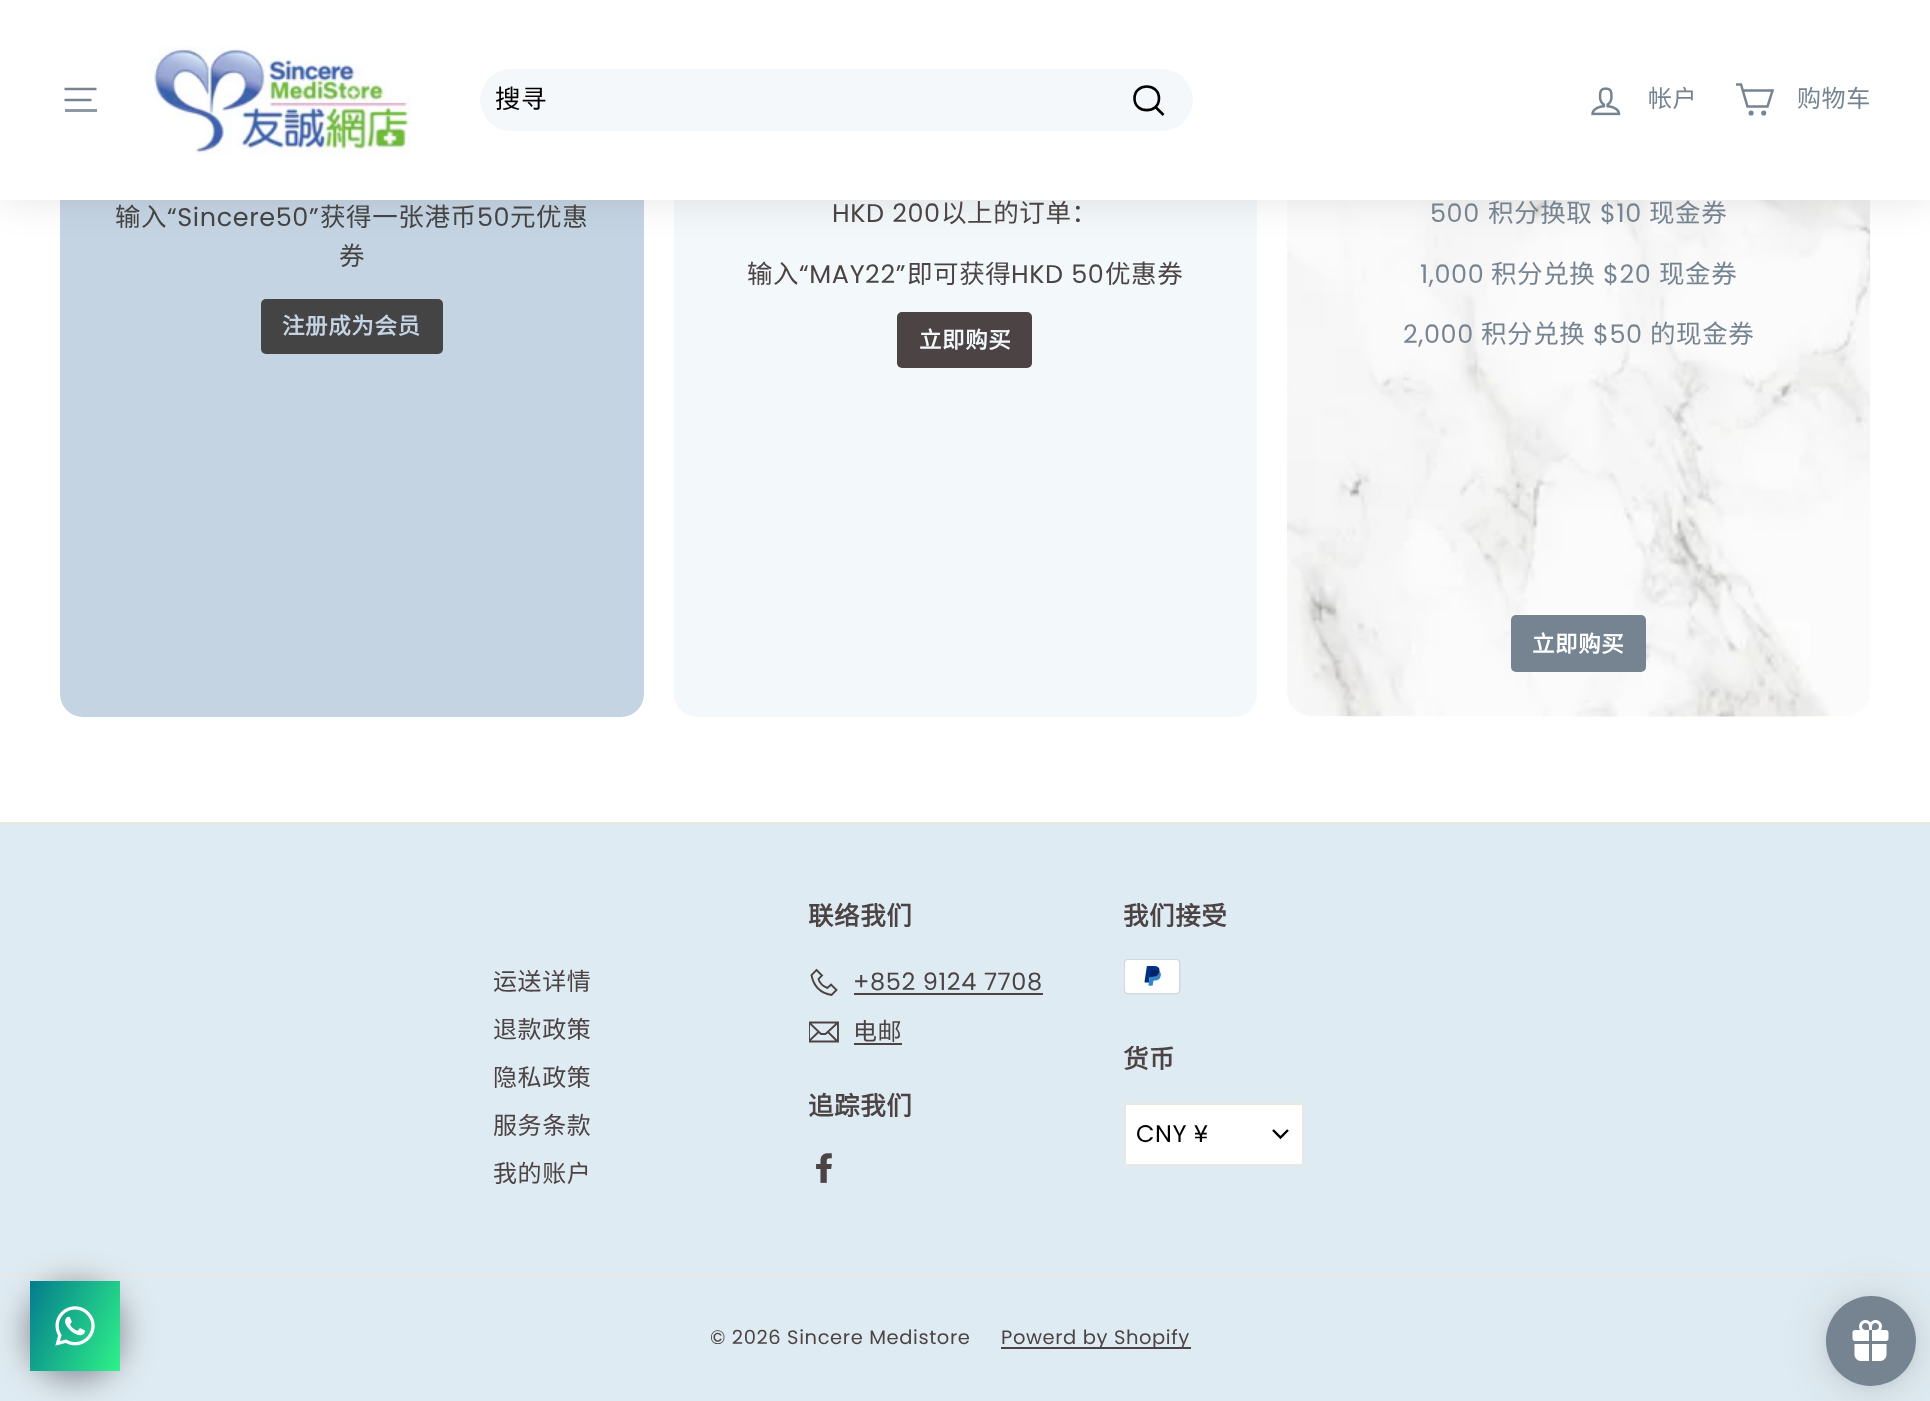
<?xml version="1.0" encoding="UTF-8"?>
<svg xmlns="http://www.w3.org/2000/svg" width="1930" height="1401">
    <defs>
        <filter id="blur1" x="-50%" y="-200%" width="200%" height="500%"><feGaussianBlur stdDeviation="19"/></filter>
        <clipPath id="clip1"><rect x="809" y="1017" width="30" height="30"/></clipPath>
        <filter id="blur2" x="-50%" y="-200%" width="200%" height="500%"><feGaussianBlur stdDeviation="18"/></filter>
        <linearGradient id="g1" gradientUnits="userSpaceOnUse" x1="21" y1="1301" x2="129" y2="1351"><stop offset="0" stop-color="#047C8D"/><stop offset="1" stop-color="#2FF289"/></linearGradient>
        <filter id="blur3" x="-50%" y="-200%" width="200%" height="500%"><feGaussianBlur stdDeviation="22.5"/></filter>
        <filter id="blur4" x="-50%" y="-200%" width="200%" height="500%"><feGaussianBlur stdDeviation="4.5"/></filter>
    </defs>
    <rect width="100%" height="100%" fill="#FFFFFF"/>
    <rect x="60" y="-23" width="584" height="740" rx="23" fill="#C5D4E3"/>
    <rect x="674" y="-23" width="583" height="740" rx="23" fill="#F3F8FB"/>
    <image x="1287" y="200" width="584" height="517" href="img_03.png"/>
    <rect x="0" y="0" width="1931" height="200" fill="#000000" fill-opacity="0.1" filter="url(#blur1)"/>
    <rect x="0" y="0" width="1930" height="200" fill="#FFFFFF"/>
    <path d="M 64.5 89 H 96.5 M 64.5 100 H 91.5" fill="none" stroke="#768492" stroke-width="2.5"/>
    <rect x="65" y="109" width="32" height="3" fill="#8D99A4"/>
    <image x="147" y="46" width="264" height="109" href="img_01.png"/>
    <rect x="480" y="69" width="713" height="62" rx="31" fill="#F5F8FA"/>
    <text x="495" y="108" font-family="Noto Sans CJK SC" font-size="25.5" letter-spacing="0.6" fill="#000000">搜寻</text>
    <path d="M 1159 98.5 C 1159 114 1134.5 114 1134.5 98.5 C 1134.5 82.5 1159 82.5 1159 98.5 Z M 1163.5 115 L 1155.5 107" fill="none" stroke="#000000" stroke-width="2.6"/>
    <image x="1591" y="87" width="30" height="29" href="img_02.png"/>
    <text x="1648" y="107" font-family="Noto Sans CJK SC" font-size="24" letter-spacing="0.6" fill="#768492">帐户</text>
    <path d="M 1743 90.5 H 1772.5 L 1767.5 106.5 H 1747.5 L 1741 84.5 H 1736" fill="none" stroke="#768492" stroke-width="2.5"/>
    <circle cx="1751.1" cy="113" r="1.3" fill="none" stroke="#768492" stroke-width="2.5"/>
    <circle cx="1763.7" cy="113" r="1.3" fill="none" stroke="#768492" stroke-width="2.5"/>
    <text x="1797" y="107" font-family="Noto Sans CJK SC" font-size="24" letter-spacing="0.6" fill="#768492">购物车</text>
    <text x="115" y="226" font-family="Noto Sans CJK SC" font-size="25.5" letter-spacing="0.6" fill="#454444">输入</text>
    <text x="167" y="226" font-family="Poppins" font-size="25.5" letter-spacing="0.6" fill="#454444">“Sincere50”</text>
    <text x="320" y="226" font-family="Noto Sans CJK SC" font-size="25.5" letter-spacing="0.6" fill="#454444">获得一张港币</text>
    <text x="477" y="226" font-family="Poppins" font-size="25.5" letter-spacing="0.6" fill="#454444">50</text>
    <text x="510" y="226" font-family="Noto Sans CJK SC" font-size="25.5" letter-spacing="0.6" fill="#454444">元优惠</text>
    <text x="339" y="265" font-family="Noto Sans CJK SC" font-size="25.5" letter-spacing="0.6" fill="#454444">券</text>
    <rect x="261" y="299" width="182" height="55" rx="5" fill="#454444"/>
    <text x="282" y="334" font-family="Noto Sans CJK SC" font-size="22.5" font-weight="700" letter-spacing="0.6" fill="#C5D4E3">注册成为会员</text>
    <text x="832" y="222" font-family="Poppins" font-size="25.5" letter-spacing="0.6" fill="#4C4444">HKD 200</text>
    <text x="941" y="222" font-family="Noto Sans CJK SC" font-size="25.5" letter-spacing="0.6" fill="#4C4444">以上的订单：</text>
    <text x="747" y="283" font-family="Noto Sans CJK SC" font-size="25.5" letter-spacing="0.6" fill="#4C4444">输入</text>
    <text x="799" y="283" font-family="Poppins" font-size="25.5" letter-spacing="0.6" fill="#4C4444">“MAY22”</text>
    <text x="907" y="283" font-family="Noto Sans CJK SC" font-size="25.5" letter-spacing="0.6" fill="#4C4444">即可获得</text>
    <text x="1011" y="283" font-family="Poppins" font-size="25.5" letter-spacing="0.6" fill="#4C4444">HKD 50</text>
    <text x="1105" y="283" font-family="Noto Sans CJK SC" font-size="25.5" letter-spacing="0.6" fill="#4C4444">优惠券</text>
    <rect x="897" y="312" width="135" height="56" rx="5" fill="#4C4444"/>
    <text x="919" y="348" font-family="Noto Sans CJK SC" font-size="22.5" font-weight="700" letter-spacing="0.6" fill="#F3F8FB">立即购买</text>
    <text x="1430" y="222" font-family="Poppins" font-size="25.5" letter-spacing="0.6" fill="#768492">500</text>
    <text x="1488" y="222" font-family="Noto Sans CJK SC" font-size="25.5" letter-spacing="0.6" fill="#768492">积分换取</text>
    <text x="1600" y="222" font-family="Poppins" font-size="25.5" letter-spacing="0.6" fill="#768492">$10</text>
    <text x="1649" y="222" font-family="Noto Sans CJK SC" font-size="25.5" letter-spacing="0.6" fill="#768492">现金券</text>
    <text x="1420" y="283" font-family="Poppins" font-size="25.5" letter-spacing="0.6" fill="#768492">1,000</text>
    <text x="1491" y="283" font-family="Noto Sans CJK SC" font-size="25.5" letter-spacing="0.6" fill="#768492">积分兑换</text>
    <text x="1603" y="283" font-family="Poppins" font-size="25.5" letter-spacing="0.6" fill="#768492">$20</text>
    <text x="1659" y="283" font-family="Noto Sans CJK SC" font-size="25.5" letter-spacing="0.6" fill="#768492">现金券</text>
    <text x="1403" y="343" font-family="Poppins" font-size="25.5" letter-spacing="0.6" fill="#768492">2,000</text>
    <text x="1481" y="343" font-family="Noto Sans CJK SC" font-size="25.5" letter-spacing="0.6" fill="#768492">积分兑换</text>
    <text x="1593" y="343" font-family="Poppins" font-size="25.5" letter-spacing="0.6" fill="#768492">$50</text>
    <text x="1650" y="343" font-family="Noto Sans CJK SC" font-size="25.5" letter-spacing="0.6" fill="#768492">的现金券</text>
    <rect x="1511" y="615" width="135" height="57" rx="5" fill="#768492"/>
    <text x="1532" y="652" font-family="Noto Sans CJK SC" font-size="22.5" font-weight="700" letter-spacing="0.6" fill="#FFFFFF">立即购买</text>
    <rect x="0" y="824" width="1930" height="577" fill="#DFEBF2"/>
    <rect x="0" y="822" width="1930" height="2" fill="#E8E8E1"/>
    <text x="493" y="990" font-family="Noto Sans CJK SC" font-size="24" letter-spacing="0.6" fill="#4C4444">运送详情</text>
    <text x="493" y="1038" font-family="Noto Sans CJK SC" font-size="24" letter-spacing="0.6" fill="#4C4444">退款政策</text>
    <text x="493" y="1086" font-family="Noto Sans CJK SC" font-size="24" letter-spacing="0.6" fill="#4C4444">隐私政策</text>
    <text x="493" y="1134" font-family="Noto Sans CJK SC" font-size="24" letter-spacing="0.6" fill="#4C4444">服务条款</text>
    <text x="493" y="1182" font-family="Noto Sans CJK SC" font-size="24" letter-spacing="0.6" fill="#4C4444">我的账户</text>
    <text x="808" y="925" font-family="Noto Sans CJK SC" font-size="25.5" font-weight="700" letter-spacing="0.6" fill="#4C4444">联络我们</text>
    <path d="M 816.5 970 L 822 975.5 L 818.5 979 C 819.5 983 822.5 986 827.5 988 L 831 984.5 L 836.5 990 L 831.5 995 C 820.5 993 813.5 986 811.5 975 Z" fill="none" stroke="#4C4444" stroke-width="1.9"/>
    <text x="853" y="990" font-family="Poppins" font-size="24" letter-spacing="0.6" fill="#4C4444">+852 9124 7708</text>
    <rect x="854" y="993" width="189" height="2" fill="#4C4444"/>
    <g clip-path="url(#clip1)">
        <path d="M 838 1041.5 H 809 V 1022.5 H 838 Z M 809 1022.5 L 821 1034 H 825.5 L 838 1022.5 M 818.5 1032 L 809 1041 M 837.5 1041.5 L 828 1032" fill="none" stroke="#4C4444" stroke-width="1.9"/>
    </g>
    <text x="853" y="1040" font-family="Noto Sans CJK SC" font-size="24" letter-spacing="0.6" fill="#4C4444">电邮</text>
    <rect x="854" y="1043" width="48" height="2" fill="#4C4444"/>
    <text x="808" y="1115" font-family="Noto Sans CJK SC" font-size="25.5" font-weight="700" letter-spacing="0.6" fill="#4C4444">追踪我们</text>
    <image x="816" y="1153" width="16" height="30" href="img_04.png"/>
    <text x="1123" y="925" font-family="Noto Sans CJK SC" font-size="25.5" font-weight="700" letter-spacing="0.6" fill="#4C4444">我们接受</text>
    <image x="1124" y="959" width="57" height="36" href="img_05.png"/>
    <text x="1123" y="1068" font-family="Noto Sans CJK SC" font-size="25.5" font-weight="700" letter-spacing="0.6" fill="#4C4444">货币</text>
    <rect x="1125" y="1104" width="178" height="61" fill="#FFFFFF" stroke="#E8E8E1" stroke-width="2"/>
    <text x="1136" y="1142" font-family="Poppins" font-size="24" letter-spacing="0.5" fill="#000000">CNY ¥</text>
    <path d="M 1273 1130 L 1280.5 1137.5 L 1288 1130" fill="none" stroke="#000000" stroke-width="2.4"/>
    <rect x="0" y="1274" width="1930" height="2" fill="#E8E8E1"/>
    <text x="710" y="1344" font-family="Poppins" font-size="19.5" letter-spacing="0.6" fill="#4C4444">© 2026 Sincere Medistore</text>
    <rect x="1001" y="1347" width="190" height="2" fill="#4C4444"/>
    <text x="1001" y="1344" font-family="Poppins" font-size="19.5" letter-spacing="0.6" fill="#4C4444">Powerd by Shopify</text>
    <rect x="30" y="1287" width="90" height="90" rx="45" fill="#020610" fill-opacity="0.5" filter="url(#blur2)"/>
    <rect x="30" y="1281" width="90" height="90" fill="url(#g1)"/>
    <image x="55" y="1306" width="40" height="40" href="img_06.png"/>
    <rect x="1826" y="1299" width="90" height="90" rx="45" fill="#000000" fill-opacity="0.15" filter="url(#blur3)"/>
    <rect x="1826" y="1298" width="90" height="90" rx="45" fill="#000000" fill-opacity="0.05" filter="url(#blur4)"/>
    <circle cx="1871" cy="1341" r="45" fill="#768492"/>
    <image x="1852" y="1320" width="37" height="41" href="img_07.png"/>
</svg>
